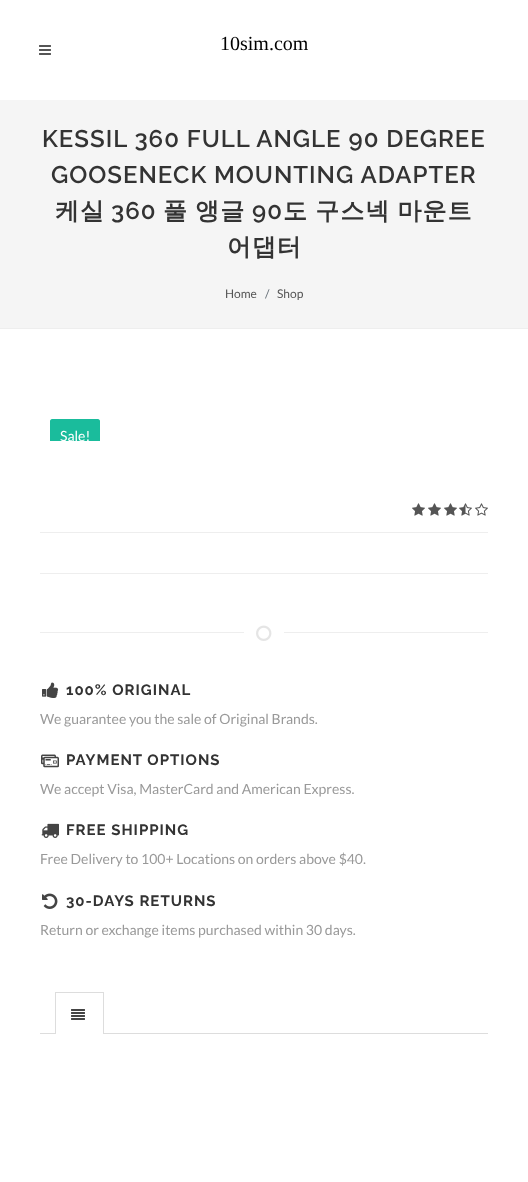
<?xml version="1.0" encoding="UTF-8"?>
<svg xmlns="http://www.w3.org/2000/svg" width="528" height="1182">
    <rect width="100%" height="100%" fill="#FFFFFF"/>
    <rect x="0" y="100" width="528" height="228" fill="#F5F5F5"/>
    <image x="39" y="45" width="12" height="10" href="img_01.png"/>
    <text x="220" y="50" font-family="Liberation Serif" font-size="20" fill="#000000">10sim.com</text>
    <rect x="0" y="328" width="528" height="1" fill="#EEEEEE"/>
    <text x="42" y="147" font-family="Raleway" font-size="24" font-weight="600" letter-spacing="1" fill="#333333">KESSIL 360 FULL ANGLE 90 DEGREE</text>
    <text x="51" y="183" font-family="Raleway" font-size="24" font-weight="600" letter-spacing="1" fill="#333333">GOOSENECK MOUNTING ADAPTER</text>
    <text x="55" y="219" font-family="WenQuanYi Zen Hei" font-size="24" font-weight="700" letter-spacing="1" fill="#333333">케실</text>
    <text x="111" y="219" font-family="Raleway" font-size="24" font-weight="600" letter-spacing="1" fill="#333333">360</text>
    <text x="163" y="219" word-spacing="-1" font-family="WenQuanYi Zen Hei" font-size="24" font-weight="700" letter-spacing="1" fill="#333333">풀 앵글</text>
    <text x="252" y="219" font-family="Raleway" font-size="24" font-weight="600" letter-spacing="1" fill="#333333">90</text>
    <text x="283" y="219" word-spacing="-1" font-family="WenQuanYi Zen Hei" font-size="24" font-weight="700" letter-spacing="1" fill="#333333">도 구스넥 마운트</text>
    <text x="227" y="255" font-family="WenQuanYi Zen Hei" font-size="24" font-weight="700" letter-spacing="1" fill="#333333">어댑터</text>
    <text x="225" y="298" font-family="Lato" font-size="12" fill="#555555">Home</text>
    <text x="265" y="298" font-family="Lato" font-size="12" fill="#6C757D">/</text>
    <text x="277" y="298" font-family="Lato" font-size="12" fill="#555555">Shop</text>
    <path d="M 52 419 H 98 C 99 419 100 420 100 421 V 441 H 50 V 421 C 50 420 51 419 52 419 Z" fill="#1ABC9C"/>
    <text x="60" y="441" font-family="Lato" font-size="14" fill="#FFFFFF">Sale!</text>
    <image x="412" y="503" width="13" height="13" href="img_02.png"/>
    <image x="428" y="503" width="13" height="13" href="img_02.png"/>
    <image x="444" y="503" width="13" height="13" href="img_02.png"/>
    <image x="459" y="503" width="13" height="13" href="img_03.png"/>
    <image x="475" y="503" width="13" height="13" href="img_04.png"/>
    <rect x="40" y="532" width="448" height="1" fill="#EEEEEE"/>
    <rect x="40" y="573" width="448" height="1" fill="#EEEEEE"/>
    <rect x="40" y="632" width="204" height="1" fill="#EEEEEE"/>
    <image x="256" y="625" width="16" height="16" href="img_05.png"/>
    <rect x="284" y="632" width="204" height="1" fill="#EEEEEE"/>
    <image x="42" y="682" width="17" height="16" href="img_06.png"/>
    <text x="66" y="695" font-family="Raleway" font-size="15" font-weight="700" letter-spacing="1" fill="#333333">100% ORIGINAL</text>
    <text x="40" y="724" font-family="Lato" font-size="14" fill="#999999">We guarantee you the sale of Original Brands.</text>
    <image x="41" y="754" width="18" height="14" href="img_07.png"/>
    <text x="66" y="765" font-family="Raleway" font-size="15" font-weight="700" letter-spacing="1" fill="#333333">PAYMENT OPTIONS</text>
    <text x="40" y="794" font-family="Lato" font-size="14" fill="#999999">We accept Visa, MasterCard and American Express.</text>
    <image x="41" y="823" width="18" height="15" href="img_08.png"/>
    <text x="66" y="835" font-family="Raleway" font-size="15" font-weight="700" letter-spacing="1" fill="#333333">FREE SHIPPING</text>
    <text x="40" y="864" font-family="Lato" font-size="14" fill="#999999">Free Delivery to 100+ Locations on orders above $40.</text>
    <image x="42" y="893" width="16" height="16" href="img_09.png"/>
    <text x="66" y="906" font-family="Raleway" font-size="15" font-weight="700" letter-spacing="1" fill="#333333">30-DAYS RETURNS</text>
    <text x="40" y="935" font-family="Lato" font-size="14" fill="#999999">Return or exchange items purchased within 30 days.</text>
    <rect x="40" y="1033" width="448" height="1" fill="#DDDDDD"/>
    <rect x="55" y="992" width="49" height="1" fill="#DDDDDD"/>
    <rect x="103" y="992" width="1" height="41" fill="#DDDDDD"/>
    <rect x="55" y="992" width="1" height="41" fill="#DDDDDD"/>
    <rect x="56" y="1033" width="47" height="1" fill="#FFFFFF"/>
    <image x="71" y="1009" width="14" height="11" href="img_10.png"/>
</svg>
